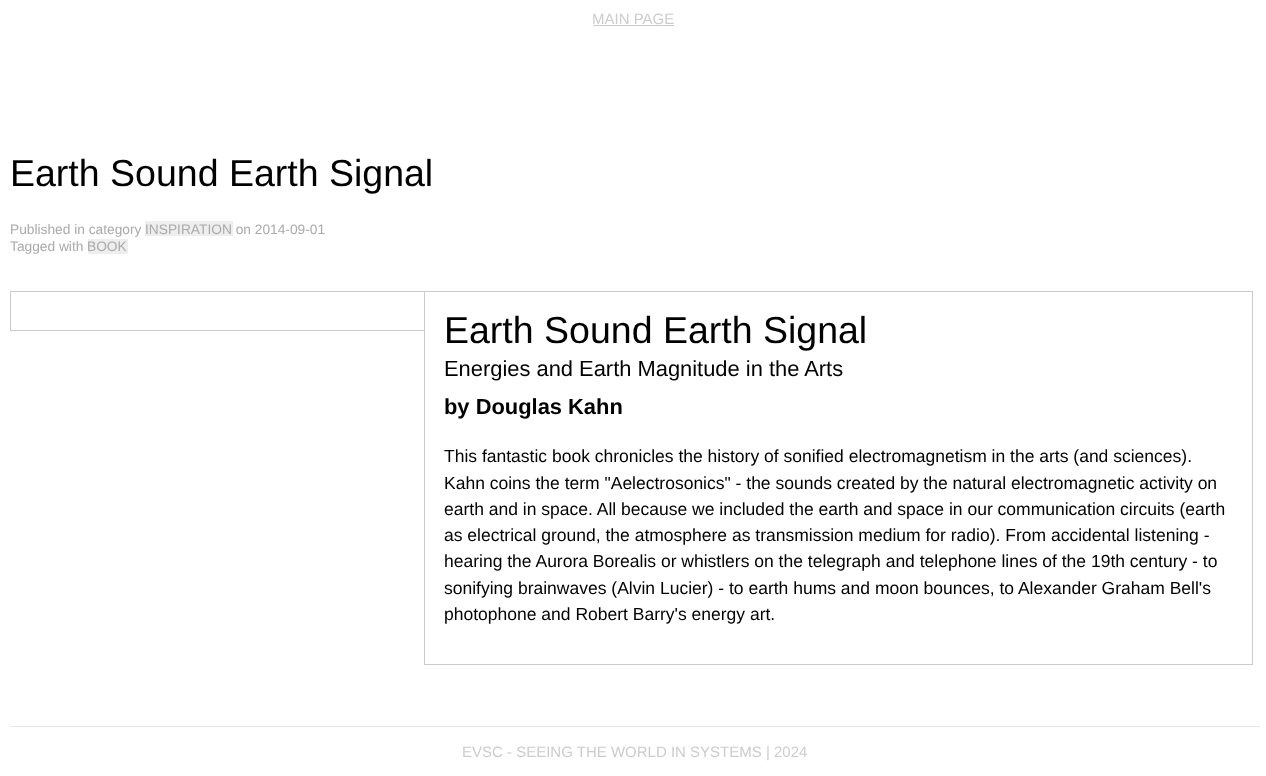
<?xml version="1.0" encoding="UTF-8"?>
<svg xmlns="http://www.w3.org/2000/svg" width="1266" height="776">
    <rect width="100%" height="100%" fill="#FFFFFF"/>
    <text x="592" y="24" font-family="Liberation Sans" font-size="15" fill="#CCCCCC">MAIN PAGE</text>
    <rect x="593" y="25" width="81" height="1" fill="#CCCCCC"/>
    <text x="10" y="186" font-family="Liberation Sans" font-size="37.5" fill="#000000">Earth Sound Earth Signal</text>
    <text x="10" y="234" font-family="Liberation Sans" font-size="13.75" fill="#AAAAAA">Published in category</text>
    <rect x="145" y="221" width="88" height="15" fill="#EEEEEE"/>
    <text x="145" y="234" font-family="Liberation Sans" font-size="13.75" fill="#AAAAAA">INSPIRATION on 2014-09-01</text>
    <text x="10" y="251" font-family="Liberation Sans" font-size="13.75" fill="#AAAAAA">Tagged with</text>
    <rect x="88" y="239" width="40" height="15" fill="#EEEEEE"/>
    <text x="87" y="251" font-family="Liberation Sans" font-size="13.75" fill="#AAAAAA">BOOK</text>
    <rect x="10.5" y="291.5" width="414" height="39" fill="none" stroke="#CCCCCC"/>
    <rect x="424.5" y="291.5" width="828" height="373" fill="none" stroke="#CCCCCC"/>
    <text x="444" y="343" font-family="Liberation Sans" font-size="37.5" fill="#000000">Earth Sound Earth Signal</text>
    <text x="444" y="376" font-family="Liberation Sans" font-size="21.9" fill="#000000">Energies and Earth Magnitude in the Arts</text>
    <text x="444" y="414" font-family="Liberation Sans" font-size="21.9" font-weight="700" fill="#000000">by Douglas Kahn</text>
    <text font-family="Liberation Sans" font-size="17.5" fill="#000000">
        <tspan x="444" y="462">This fantastic book chronicles the history of sonified electromagnetism in the arts (and sciences).</tspan>
        <tspan x="444" y="489">Kahn coins the term "Aelectrosonics" - the sounds created by the natural electromagnetic activity on</tspan>
        <tspan x="444" y="515">earth and in space. All because we included the earth and space in our communication circuits (earth</tspan>
        <tspan x="444" y="541">as electrical ground, the atmosphere as transmission medium for radio). From accidental listening -</tspan>
        <tspan x="444" y="567">hearing the Aurora Borealis or whistlers on the telegraph and telephone lines of the 19th century - to</tspan>
        <tspan x="444" y="594">sonifying brainwaves (Alvin Lucier) - to earth hums and moon bounces, to Alexander Graham Bell's</tspan>
        <tspan x="444" y="620">photophone and Robert Barry's energy art.</tspan>
    </text>
    <rect x="10" y="726" width="1250" height="1" fill="#E7E7E7"/>
    <text x="462" y="757" font-family="Liberation Sans" font-size="15" fill="#CCCCCC">EVSC - SEEING THE WORLD IN SYSTEMS | 2024</text>
</svg>
